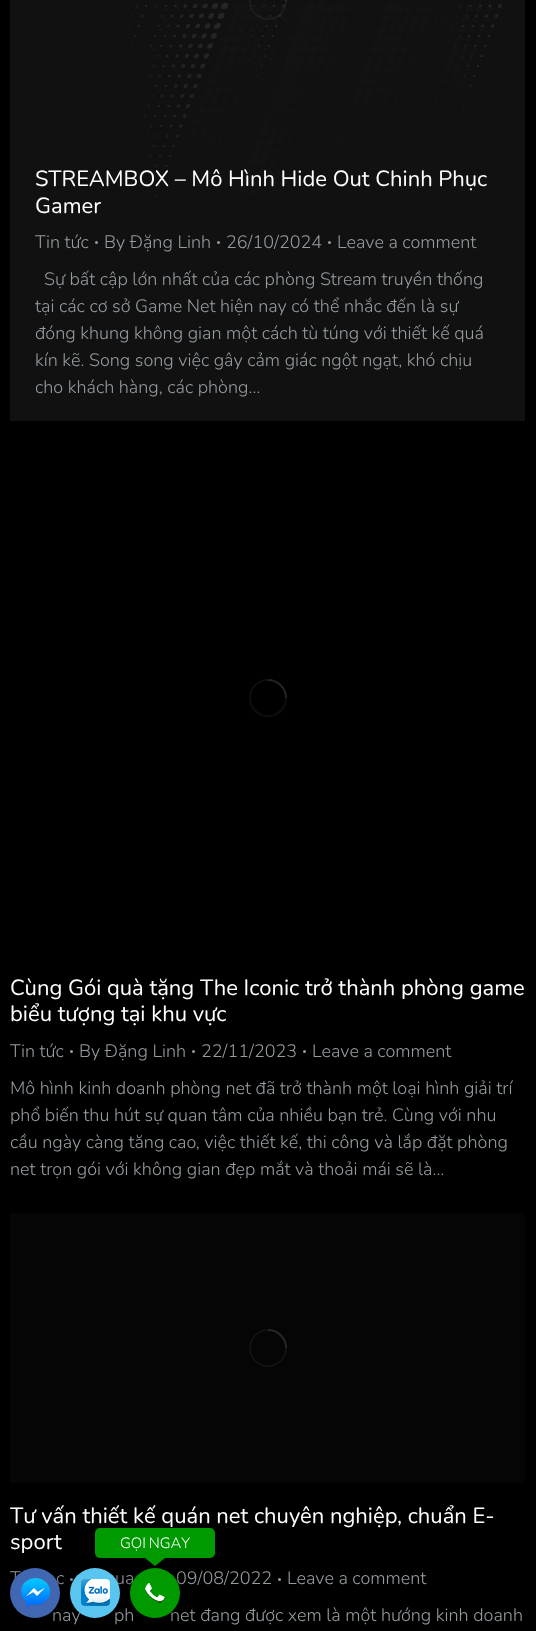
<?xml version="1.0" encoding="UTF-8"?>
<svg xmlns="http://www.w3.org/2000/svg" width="536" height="1631">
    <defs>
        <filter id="blur1" x="-50%" y="-200%" width="200%" height="500%"><feGaussianBlur stdDeviation="5"/></filter>
    </defs>
    <rect width="100%" height="100%" fill="#000000"/>
    <rect x="10" y="0" width="515" height="421" fill="#111112"/>
    <image x="120" y="2" width="382" height="225" href="img_01.png"/>
    <circle cx="268" cy="1" r="18" fill="none" stroke="#666666" stroke-opacity="0.14" stroke-width="2"/>
    <path d="M 286 1 C 286 -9 278 -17 268 -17" fill="none" stroke="#2F2F30" stroke-width="2"/>
    <text font-family="Nunito" font-size="22" fill="#FFFFFF">
        <tspan x="35" y="186">STREAMBOX – Mô Hình Hide Out Chinh Phục</tspan>
        <tspan x="35" y="213">Gamer</tspan>
    </text>
    <text x="35" y="248" font-family="Nunito" font-size="18" font-weight="300" fill="#959CA0">Tin tức</text>
    <circle cx="96.5" cy="242.5" r="1.5" fill="#959CA0"/>
    <text x="104" y="248" font-family="Nunito" font-size="18" font-weight="300" fill="#959CA0">By Đặng Linh</text>
    <circle cx="218.5" cy="242.5" r="1.5" fill="#959CA0"/>
    <text x="226" y="248" font-family="Nunito" font-size="18" font-weight="300" fill="#959CA0">26/10/2024</text>
    <circle cx="329.5" cy="242.5" r="1.5" fill="#959CA0"/>
    <text x="337" y="248" font-family="Nunito" font-size="18" font-weight="300" fill="#959CA0">Leave a comment</text>
    <text x="44" y="285" font-family="Nunito" font-size="18" font-weight="300" fill="#959CA0">Sự bất cập lớn nhất của các phòng Stream truyền thống</text>
    <text font-family="Nunito" font-size="18" font-weight="300" fill="#959CA0">
        <tspan x="35" y="312">tại các cơ sở Game Net hiện nay có thể nhắc đến là sự</tspan>
        <tspan x="35" y="339">đóng khung không gian một cách tù túng với thiết kế quá</tspan>
        <tspan x="35" y="366">kín kẽ. Song song việc gây cảm giác ngột ngạt, khó chịu</tspan>
        <tspan x="35" y="393">cho khách hàng, các phòng…</tspan>
    </text>
    <circle cx="268" cy="698" r="18" fill="none" stroke="#0E0E0E" stroke-width="2"/>
    <path d="M 286 698 C 286 688 278 680 268 680" fill="none" stroke="#666666" stroke-opacity="0.25" stroke-width="2"/>
    <text font-family="Nunito" font-size="22" fill="#FFFFFF">
        <tspan x="10" y="995">Cùng Gói quà tặng The Iconic trở thành phòng game</tspan>
        <tspan x="10" y="1021">biểu tượng tại khu vực</tspan>
    </text>
    <text x="10" y="1057" font-family="Nunito" font-size="18" font-weight="300" fill="#959CA0">Tin tức</text>
    <circle cx="71.5" cy="1051.5" r="1.5" fill="#959CA0"/>
    <text x="79" y="1057" font-family="Nunito" font-size="18" font-weight="300" fill="#959CA0">By Đặng Linh</text>
    <circle cx="193.5" cy="1051.5" r="1.5" fill="#959CA0"/>
    <text x="201" y="1057" font-family="Nunito" font-size="18" font-weight="300" fill="#959CA0">22/11/2023</text>
    <circle cx="304.5" cy="1051.5" r="1.5" fill="#959CA0"/>
    <text x="312" y="1057" font-family="Nunito" font-size="18" font-weight="300" fill="#959CA0">Leave a comment</text>
    <text font-family="Nunito" font-size="18" font-weight="300" fill="#959CA0">
        <tspan x="10" y="1094">Mô hình kinh doanh phòng net đã trở thành một loại hình giải trí</tspan>
        <tspan x="10" y="1121">phổ biến thu hút sự quan tâm của nhiều bạn trẻ. Cùng với nhu</tspan>
        <tspan x="10" y="1148">cầu ngày càng tăng cao, việc thiết kế, thi công và lắp đặt phòng</tspan>
        <tspan x="10" y="1175">net trọn gói với không gian đẹp mắt và thoải mái sẽ là…</tspan>
    </text>
    <rect x="10" y="1213" width="515" height="270" fill="#050505"/>
    <circle cx="268" cy="1348" r="18" fill="none" stroke="#121212" stroke-width="2"/>
    <path d="M 286 1348 C 286 1338 278 1330 268 1330" fill="none" stroke="#666666" stroke-opacity="0.25" stroke-width="2"/>
    <text font-family="Nunito" font-size="22" fill="#FFFFFF">
        <tspan x="10" y="1523">Tư vấn thiết kế quán net chuyên nghiệp, chuẩn E-</tspan>
        <tspan x="10" y="1549">sport</tspan>
    </text>
    <text x="10" y="1584" font-family="Nunito" font-size="18" font-weight="300" fill="#959CA0">T</text>
    <text x="56" y="1584" font-family="Nunito" font-size="18" font-weight="300" fill="#959CA0">c</text>
    <circle cx="71.5" cy="1579.5" r="1.5" fill="#959CA0"/>
    <text x="115" y="1584" font-family="Nunito" font-size="18" font-weight="300" fill="#959CA0">ua</text>
    <text x="176" y="1584" font-family="Nunito" font-size="18" font-weight="300" fill="#959CA0">09/08/2022</text>
    <circle cx="279.5" cy="1579.5" r="1.5" fill="#959CA0"/>
    <text x="287" y="1584" font-family="Nunito" font-size="18" font-weight="300" fill="#959CA0">Leave a comment</text>
    <text x="52" y="1621" font-family="Nunito" font-size="18" font-weight="300" fill="#959CA0">nay</text>
    <text x="114" y="1621" font-family="Nunito" font-size="18" font-weight="300" fill="#959CA0">ph</text>
    <text x="170" y="1621" font-family="Nunito" font-size="18" font-weight="300" fill="#959CA0">net đang được xem là một hướng kinh doanh</text>
    <rect x="12" y="1570" width="46" height="46" rx="23" fill="#000000" fill-opacity="0.7" filter="url(#blur1)"/>
    <circle cx="35" cy="1593" r="25" fill="#4267B2"/>
    <rect x="72" y="1570" width="46" height="46" rx="23" fill="#000000" fill-opacity="0.7" filter="url(#blur1)"/>
    <circle cx="95" cy="1593" r="25" fill="#5AC5EF"/>
    <rect x="132" y="1570" width="46" height="46" rx="23" fill="#000000" fill-opacity="0.7" filter="url(#blur1)"/>
    <rect x="95" y="1528" width="120" height="30" rx="5" fill="#009900"/>
    <text x="120" y="1548" word-spacing="-1" font-family="Nunito" font-size="15" font-weight="300" fill="#FFFFFF">GỌI NGAY</text>
    <path d="M 145 1558 H 165 L 155 1566 Z" fill="#009900"/>
    <circle cx="155" cy="1593" r="25" fill="#009900"/>
    <image x="145" y="1583" width="20" height="20" href="img_02.png"/>
    <image x="21" y="1578" width="29" height="29" href="img_03.png"/>
    <image x="81" y="1579" width="29" height="27" href="img_04.png"/>
</svg>
